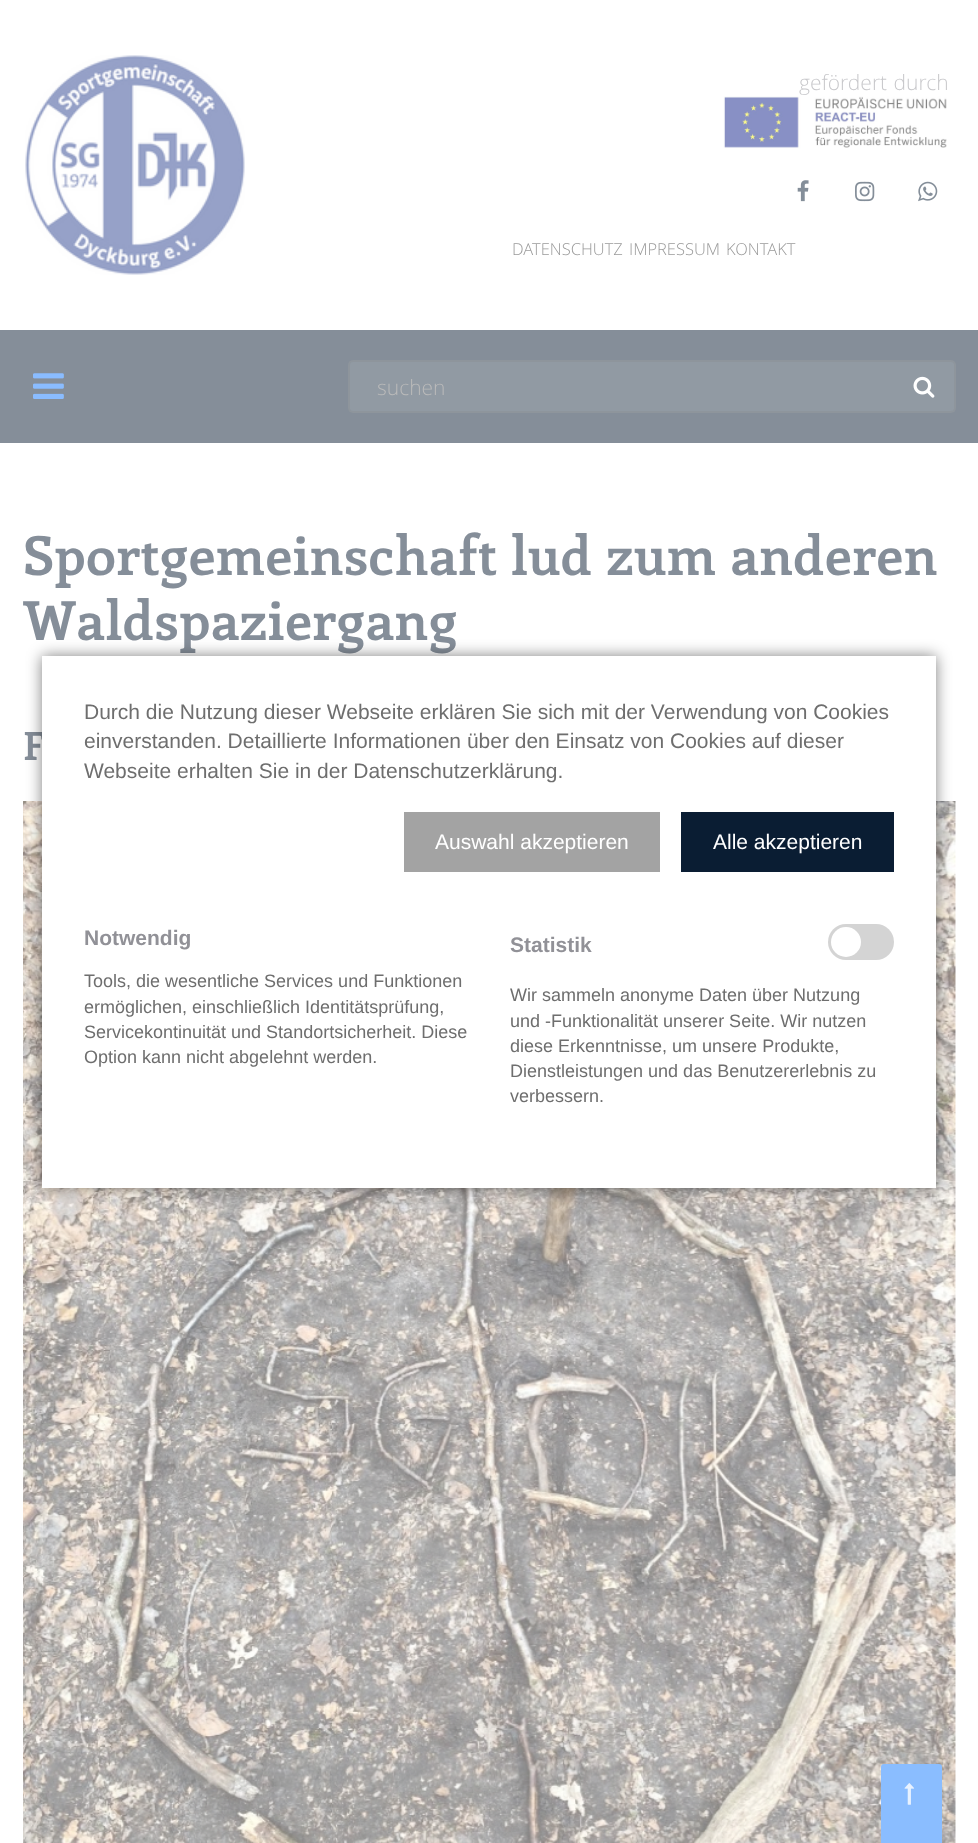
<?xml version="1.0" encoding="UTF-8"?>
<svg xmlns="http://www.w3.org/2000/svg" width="978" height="1843">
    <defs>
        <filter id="blur1" x="-50%" y="-200%" width="200%" height="500%"><feGaussianBlur stdDeviation="7.5"/></filter>
    </defs>
    <rect width="100%" height="100%" fill="#FFFFFF"/>
    <image x="25" y="55" width="220" height="220" href="img_01.png"/>
    <text x="799" y="90" word-spacing="1" font-family="Open Sans" font-size="21" font-weight="300" fill="#C8C8CB">gefördert durch</text>
    <image x="723" y="96" width="224" height="53" href="img_02.png"/>
    <image x="797" y="180" width="12" height="22" href="img_03.png"/>
    <image x="855" y="181" width="20" height="21" href="img_04.png"/>
    <image x="918" y="181" width="20" height="21" href="img_05.png"/>
    <text x="512" y="255" font-family="Open Sans" font-size="16.5" font-weight="300" fill="#9A9A9A">DATENSCHUTZ</text>
    <text x="629" y="255" font-family="Open Sans" font-size="16.5" font-weight="300" fill="#9A9A9A">IMPRESSUM</text>
    <text x="726" y="255" font-family="Open Sans" font-size="16.5" font-weight="300" fill="#9A9A9A">KONTAKT</text>
    <rect x="0" y="330" width="978" height="113" fill="#858E99"/>
    <image x="33" y="373" width="31" height="26" href="img_06.png"/>
    <rect x="348" y="360" width="608" height="53" rx="5" fill="#919AA3"/>
    <rect x="349" y="361" width="606" height="51" rx="4" fill="none" stroke="#808080" stroke-opacity="0.2" stroke-width="2"/>
    <text x="377" y="395" font-family="Open Sans" font-size="21" font-weight="300" fill="#BABABA">suchen</text>
    <image x="913" y="376" width="22" height="22" href="img_07.png"/>
    <image x="23" y="801" width="933" height="1042" href="img_09.png"/>
    <rect x="881" y="1764" width="61" height="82" rx="3" fill="#8ABDFF"/>
    <image x="904" y="1783" width="11" height="22" href="img_08.png"/>
    <text font-family="Enriqueta" font-size="54" font-weight="700" fill="#858E99">
        <tspan x="23" y="575">Sportgemeinschaft lud zum anderen</tspan>
        <tspan x="23" y="640">Waldspaziergang</tspan>
    </text>
    <text x="23" y="760" font-family="Enriqueta" font-size="39" font-weight="700" fill="#858E99">F</text>
    <rect x="42" y="656" width="894" height="532" fill="#000000" fill-opacity="0.5" filter="url(#blur1)"/>
    <rect x="42" y="656" width="894" height="532" fill="#FFFFFF"/>
    <text font-family="Liberation Sans" font-size="21" fill="#6E6E6E">
        <tspan x="84" y="719">Durch die Nutzung dieser Webseite erklären Sie sich mit der Verwendung von Cookies</tspan>
        <tspan x="84" y="748">einverstanden. Detaillierte Informationen über den Einsatz von Cookies auf dieser</tspan>
        <tspan x="84" y="778">Webseite erhalten Sie in der Datenschutzerklärung.</tspan>
    </text>
    <rect x="404" y="812" width="256" height="60" fill="#A3A3A3"/>
    <text x="435" y="849" font-family="Liberation Sans" font-size="21" fill="#FFFFFF">Auswahl akzeptieren</text>
    <rect x="681" y="812" width="213" height="60" fill="#0A1D33"/>
    <text x="713" y="849" font-family="Liberation Sans" font-size="21" fill="#FFFFFF">Alle akzeptieren</text>
    <text x="84" y="945" font-family="Liberation Sans" font-size="21" font-weight="700" fill="#919197">Notwendig</text>
    <text font-family="Liberation Sans" font-size="18" fill="#6E6E6E">
        <tspan x="84" y="987">Tools, die wesentliche Services und Funktionen</tspan>
        <tspan x="84" y="1013">ermöglichen, einschließlich Identitätsprüfung,</tspan>
        <tspan x="84" y="1038">Servicekontinuität und Standortsicherheit. Diese</tspan>
        <tspan x="84" y="1063">Option kann nicht abgelehnt werden.</tspan>
    </text>
    <text x="510" y="952" font-family="Liberation Sans" font-size="21" font-weight="700" fill="#919197">Statistik</text>
    <rect x="828" y="924" width="66" height="36" rx="18" fill="#D4D4D4"/>
    <circle cx="846" cy="942" r="15" fill="#FFFFFF"/>
    <text font-family="Liberation Sans" font-size="18" fill="#6E6E6E">
        <tspan x="510" y="1001">Wir sammeln anonyme Daten über Nutzung</tspan>
        <tspan x="510" y="1027">und -Funktionalität unserer Seite. Wir nutzen</tspan>
        <tspan x="510" y="1052">diese Erkenntnisse, um unsere Produkte,</tspan>
        <tspan x="510" y="1077">Dienstleistungen und das Benutzererlebnis zu</tspan>
        <tspan x="510" y="1102">verbessern.</tspan>
    </text>
</svg>
